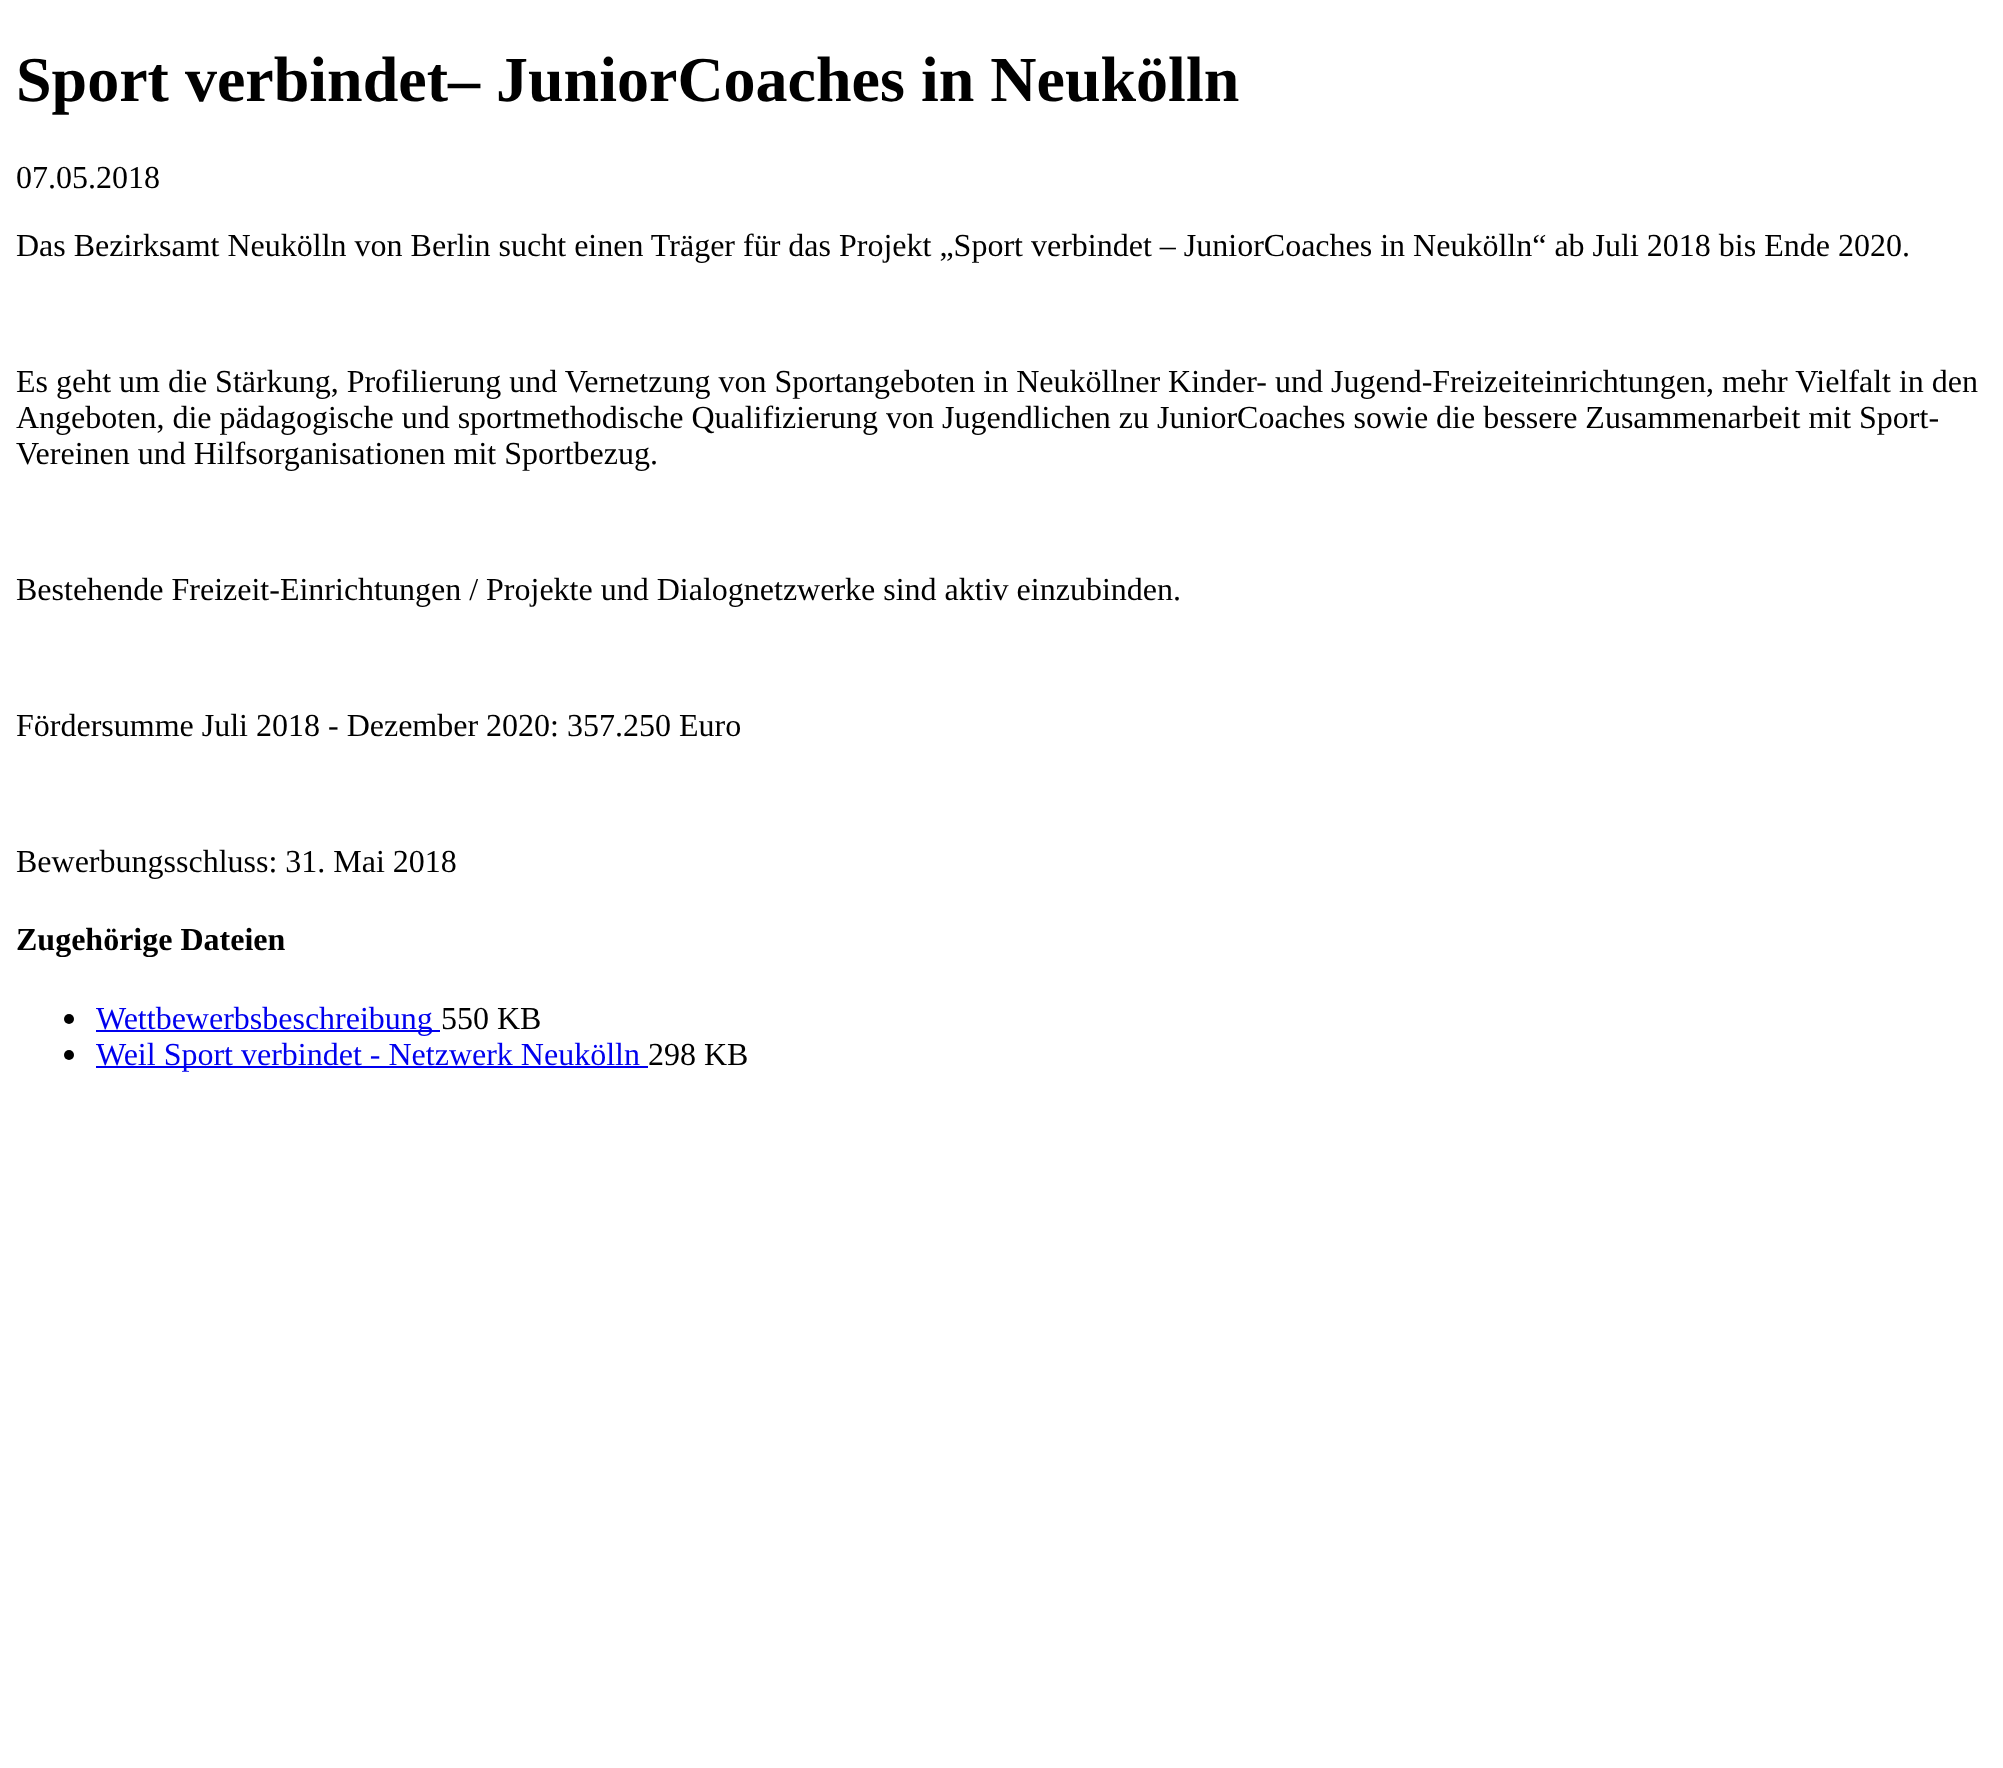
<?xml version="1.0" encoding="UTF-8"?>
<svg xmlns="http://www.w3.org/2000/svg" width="2003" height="1768">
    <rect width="100%" height="100%" fill="#FFFFFF"/>
    <text x="16" y="101" font-family="Liberation Serif" font-size="64" font-weight="700" fill="#000000">Sport verbindet– JuniorCoaches in Neukölln</text>
    <text x="16" y="188" font-family="Liberation Serif" font-size="32" fill="#000000">07.05.2018</text>
    <text x="16" y="256" font-family="Liberation Serif" font-size="32" fill="#000000">Das Bezirksamt Neukölln von Berlin sucht einen Träger für das Projekt „Sport verbindet – JuniorCoaches in Neukölln“ ab Juli 2018 bis Ende 2020.</text>
    <text font-family="Liberation Serif" font-size="32" fill="#000000">
        <tspan x="16" y="392">Es geht um die Stärkung, Profilierung und Vernetzung von Sportangeboten in Neuköllner Kinder- und Jugend-Freizeiteinrichtungen, mehr Vielfalt in den</tspan>
        <tspan x="16" y="428">Angeboten, die pädagogische und sportmethodische Qualifizierung von Jugendlichen zu JuniorCoaches sowie die bessere Zusammenarbeit mit Sport-</tspan>
        <tspan x="16" y="464">Vereinen und Hilfsorganisationen mit Sportbezug.</tspan>
    </text>
    <text x="16" y="600" font-family="Liberation Serif" font-size="32" fill="#000000">Bestehende Freizeit-Einrichtungen / Projekte und Dialognetzwerke sind aktiv einzubinden.</text>
    <text x="16" y="736" font-family="Liberation Serif" font-size="32" fill="#000000">Fördersumme Juli 2018 - Dezember 2020: 357.250 Euro</text>
    <text x="16" y="872" font-family="Liberation Serif" font-size="32" fill="#000000">Bewerbungsschluss: 31. Mai 2018</text>
    <text x="16" y="950" font-family="Liberation Serif" font-size="32" font-weight="700" fill="#000000">Zugehörige Dateien</text>
    <circle cx="69" cy="1019" r="5" fill="#000000"/>
    <rect x="96" y="1030" width="344" height="2" fill="#0000EE"/>
    <text x="96" y="1029" font-family="Liberation Serif" font-size="32" fill="#0000EE">Wettbewerbsbeschreibung</text>
    <text x="441" y="1029" font-family="Liberation Serif" font-size="32" fill="#000000">550 KB</text>
    <circle cx="69" cy="1055" r="5" fill="#000000"/>
    <rect x="96" y="1066" width="552" height="2" fill="#0000EE"/>
    <text x="96" y="1065" font-family="Liberation Serif" font-size="32" fill="#0000EE">Weil Sport verbindet - Netzwerk Neukölln</text>
    <text x="648" y="1065" font-family="Liberation Serif" font-size="32" fill="#000000">298 KB</text>
</svg>
